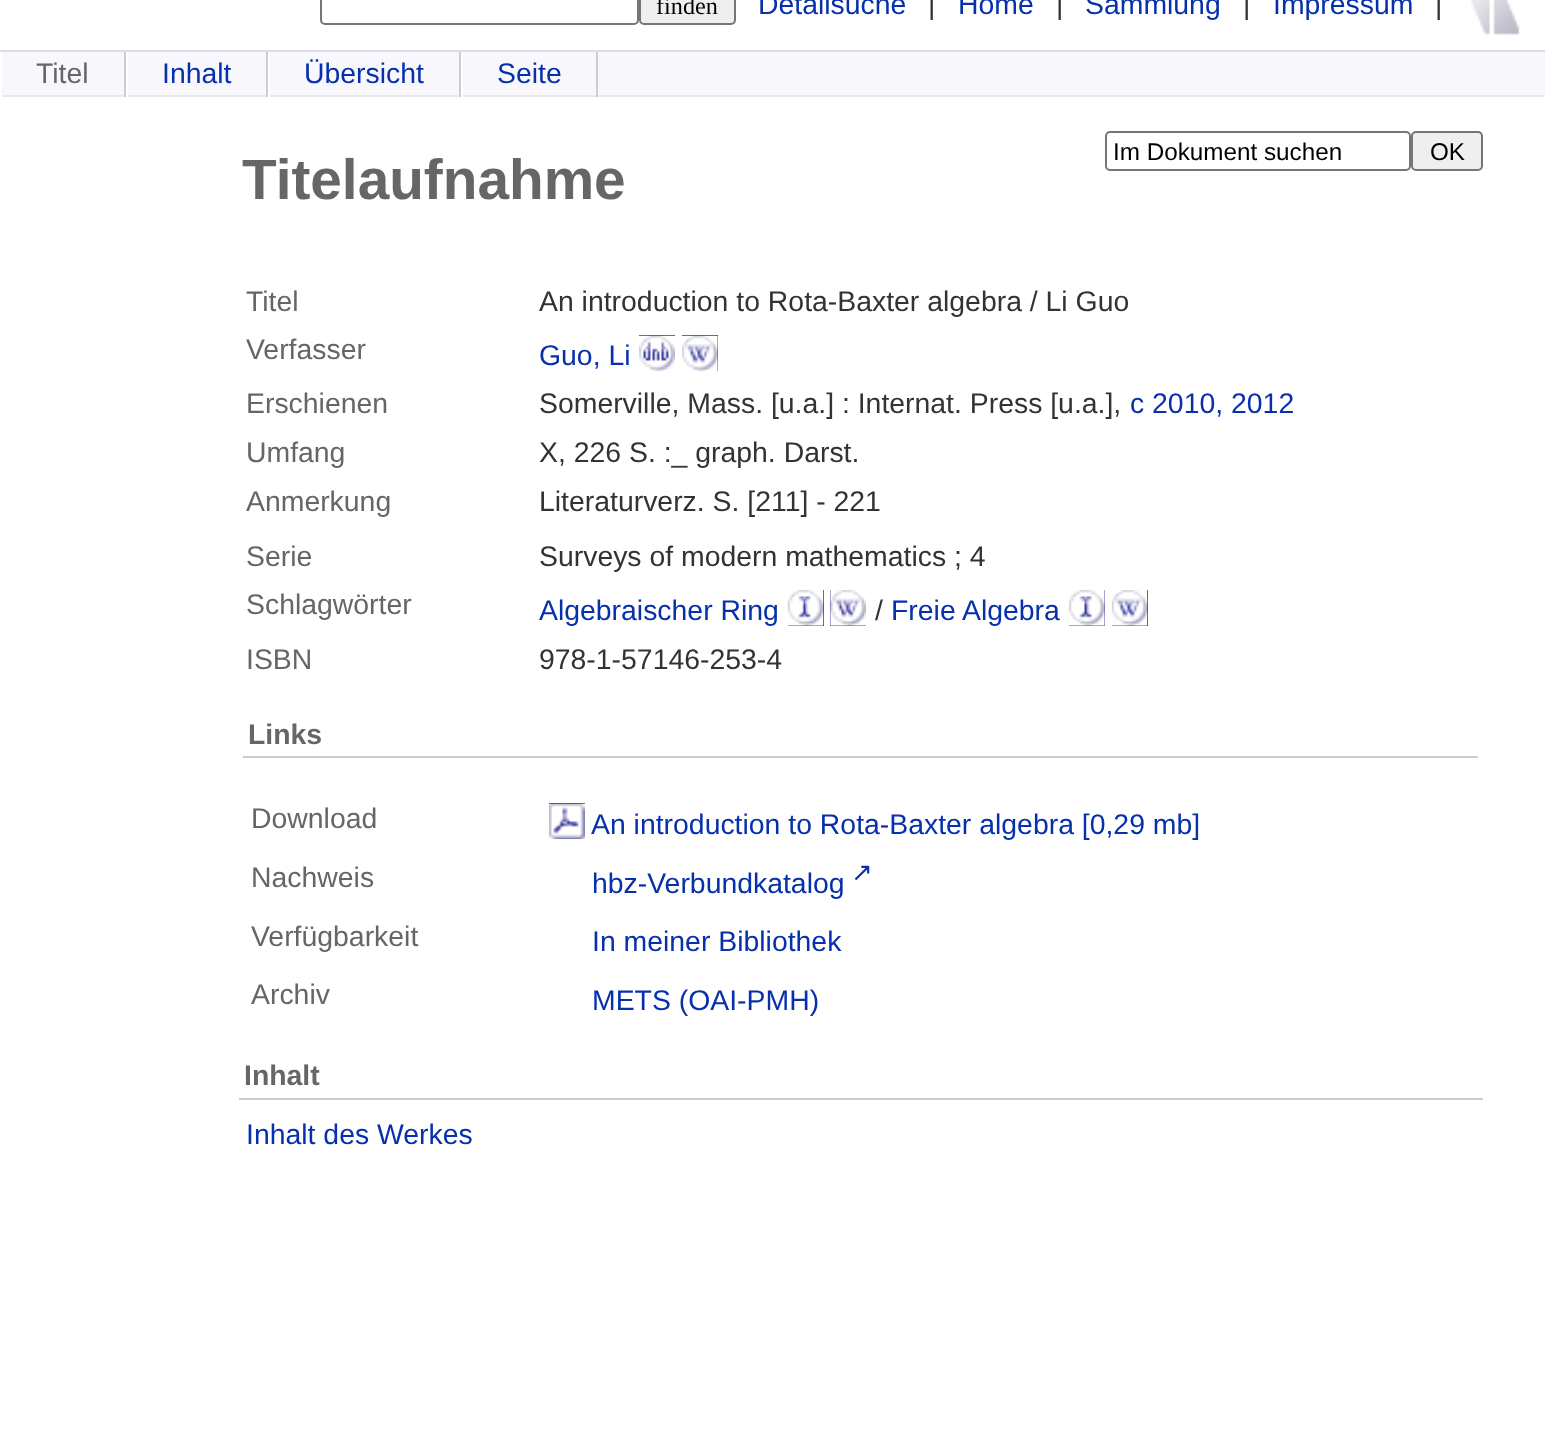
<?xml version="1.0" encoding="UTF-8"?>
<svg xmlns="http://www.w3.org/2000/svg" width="1545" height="1455">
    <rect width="100%" height="100%" fill="#FFFFFF"/>
    <rect x="321" y="-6" width="317" height="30" rx="4" fill="none" stroke="#767676" stroke-width="2"/>
    <rect x="640" y="-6" width="95" height="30" rx="4" fill="#EFEFEF" stroke="#767676" stroke-width="2"/>
    <text x="656" y="14" font-family="Liberation Serif" font-size="24.25" fill="#000000">finden</text>
    <text x="758" y="14" font-family="Liberation Sans" font-size="28.4" fill="#0630AC">Detailsuche</text>
    <text x="928" y="14" font-family="Liberation Sans" font-size="28.4" fill="#333333">|</text>
    <text x="958" y="14" font-family="Liberation Sans" font-size="28.4" fill="#0630AC">Home</text>
    <text x="1056" y="14" font-family="Liberation Sans" font-size="28.4" fill="#333333">|</text>
    <text x="1085" y="14" font-family="Liberation Sans" font-size="28.4" fill="#0630AC">Sammlung</text>
    <text x="1243" y="14" font-family="Liberation Sans" font-size="28.4" fill="#333333">|</text>
    <text x="1273" y="14" font-family="Liberation Sans" font-size="28.4" fill="#0630AC">Impressum</text>
    <text x="1435" y="14" font-family="Liberation Sans" font-size="28.4" fill="#333333">|</text>
    <image x="1470" y="0" width="50" height="35" href="img_01.png"/>
    <rect x="2" y="52" width="1543" height="43" fill="#F8F7FB"/>
    <rect x="0" y="50" width="1545" height="2" fill="#DDDDEE"/>
    <rect x="0" y="95" width="1545" height="2" fill="#E8E8F0"/>
    <rect x="124" y="52" width="2" height="45" fill="#CCCBD7"/>
    <rect x="0" y="95" width="2" height="2" fill="#FFFFFF"/>
    <text x="36" y="83" font-family="Liberation Sans" font-size="28.4" fill="#666666">Titel</text>
    <rect x="266" y="52" width="2" height="45" fill="#CCCBD7"/>
    <rect x="126" y="52" width="2" height="45" fill="#FFFFFF"/>
    <text x="162" y="83" font-family="Liberation Sans" font-size="28.4" fill="#0630AC">Inhalt</text>
    <rect x="459" y="52" width="2" height="45" fill="#CCCBD7"/>
    <rect x="268" y="52" width="2" height="45" fill="#FFFFFF"/>
    <text x="304" y="83" font-family="Liberation Sans" font-size="28.4" fill="#0630AC">Übersicht</text>
    <rect x="596" y="52" width="2" height="45" fill="#CCCBD7"/>
    <rect x="461" y="52" width="2" height="45" fill="#FFFFFF"/>
    <text x="497" y="83" font-family="Liberation Sans" font-size="28.4" fill="#0630AC">Seite</text>
    <rect x="1106" y="132" width="304" height="38" rx="4" fill="none" stroke="#767676" stroke-width="2"/>
    <text x="1113" y="160" font-family="Liberation Sans" font-size="24.25" fill="#000000">Im Dokument suchen</text>
    <rect x="1412" y="132" width="70" height="38" rx="4" fill="#EFEFEF" stroke="#767676" stroke-width="2"/>
    <text x="1430" y="160" font-family="Liberation Sans" font-size="24.25" fill="#000000">OK</text>
    <text x="242" y="199" font-family="Liberation Sans" font-size="56.75" font-weight="700" fill="#666666">Titelaufnahme</text>
    <text x="246" y="311" font-family="Liberation Sans" font-size="28.4" fill="#666666">Titel</text>
    <text x="539" y="311" font-family="Liberation Sans" font-size="28.4" fill="#333333">An introduction to Rota-Baxter algebra / Li Guo</text>
    <text x="246" y="359" font-family="Liberation Sans" font-size="28.4" fill="#666666">Verfasser</text>
    <text x="539" y="365" font-family="Liberation Sans" font-size="28.4" fill="#0630AC">Guo, Li</text>
    <rect x="639" y="335" width="36" height="36" fill="#333399"/>
    <rect x="682" y="335" width="36" height="36" fill="#333399"/>
    <image x="639" y="335" width="36" height="37" href="img_02.png"/>
    <image x="682" y="335" width="36" height="36" href="img_03.png"/>
    <text x="246" y="413" font-family="Liberation Sans" font-size="28.4" fill="#666666">Erschienen</text>
    <text x="539" y="413" font-family="Liberation Sans" font-size="28.4" fill="#333333">Somerville, Mass. [u.a.] : Internat. Press [u.a.],</text>
    <text x="1130" y="413" font-family="Liberation Sans" font-size="28.4" fill="#0630AC">c 2010, 2012</text>
    <text x="246" y="462" font-family="Liberation Sans" font-size="28.4" fill="#666666">Umfang</text>
    <text x="539" y="462" font-family="Liberation Sans" font-size="28.4" fill="#333333">X, 226 S. :_ graph. Darst.</text>
    <text x="246" y="511" font-family="Liberation Sans" font-size="28.4" fill="#666666">Anmerkung</text>
    <text x="539" y="511" font-family="Liberation Sans" font-size="28.4" fill="#333333">Literaturverz. S. [211] - 221</text>
    <text x="246" y="566" font-family="Liberation Sans" font-size="28.4" fill="#666666">Serie</text>
    <text x="539" y="566" font-family="Liberation Sans" font-size="28.4" fill="#333333">Surveys of modern mathematics ; 4</text>
    <text x="246" y="614" font-family="Liberation Sans" font-size="28.4" fill="#666666">Schlagwörter</text>
    <text x="539" y="620" font-family="Liberation Sans" font-size="28.4" fill="#0630AC">Algebraischer Ring</text>
    <rect x="788" y="590" width="36" height="36" fill="#333399"/>
    <image x="787" y="590" width="37" height="36" href="img_04.png"/>
    <rect x="830" y="590" width="36" height="36" fill="#333399"/>
    <image x="830" y="590" width="36" height="36" href="img_05.png"/>
    <text x="875" y="620" font-family="Liberation Sans" font-size="28.4" fill="#333333">/</text>
    <text x="891" y="620" font-family="Liberation Sans" font-size="28.4" fill="#0630AC">Freie Algebra</text>
    <rect x="1069" y="590" width="36" height="36" fill="#333399"/>
    <rect x="1112" y="590" width="36" height="36" fill="#333399"/>
    <image x="1069" y="590" width="36" height="36" href="img_06.png"/>
    <image x="1111" y="590" width="37" height="36" href="img_07.png"/>
    <text x="246" y="669" font-family="Liberation Sans" font-size="28.4" fill="#666666">ISBN</text>
    <text x="539" y="669" font-family="Liberation Sans" font-size="28.4" fill="#333333">978-1-57146-253-4</text>
    <rect x="243" y="756" width="1235" height="2" fill="#CCCCCC"/>
    <text x="248" y="744" font-family="Liberation Sans" font-size="28.4" font-weight="700" fill="#666666">Links</text>
    <text x="251" y="828" font-family="Liberation Sans" font-size="28.4" fill="#666666">Download</text>
    <rect x="549" y="803" width="36" height="36" fill="#333399"/>
    <image x="549" y="803" width="36" height="37" href="img_08.png"/>
    <text x="591" y="834" font-family="Liberation Sans" font-size="28.4" fill="#0630AC">An introduction to Rota-Baxter algebra [0,29 mb]</text>
    <text x="251" y="887" font-family="Liberation Sans" font-size="28.4" fill="#666666">Nachweis</text>
    <text x="592" y="893" font-family="Liberation Sans" font-size="28.4" fill="#0630AC">hbz-Verbundkatalog</text>
    <text x="851" y="881" font-family="DejaVu Sans" font-size="26" fill="#0630AC">↗</text>
    <text x="251" y="946" font-family="Liberation Sans" font-size="28.4" fill="#666666">Verfügbarkeit</text>
    <text x="592" y="951" font-family="Liberation Sans" font-size="28.4" fill="#0630AC">In meiner Bibliothek</text>
    <text x="251" y="1004" font-family="Liberation Sans" font-size="28.4" fill="#666666">Archiv</text>
    <text x="592" y="1010" font-family="Liberation Sans" font-size="28.4" fill="#0630AC">METS (OAI-PMH)</text>
    <rect x="239" y="1098" width="1244" height="2" fill="#CCCCCC"/>
    <text x="244" y="1085" font-family="Liberation Sans" font-size="28.4" font-weight="700" fill="#666666">Inhalt</text>
    <text x="246" y="1144" font-family="Liberation Sans" font-size="28.4" fill="#0630AC">Inhalt des Werkes</text>
</svg>
